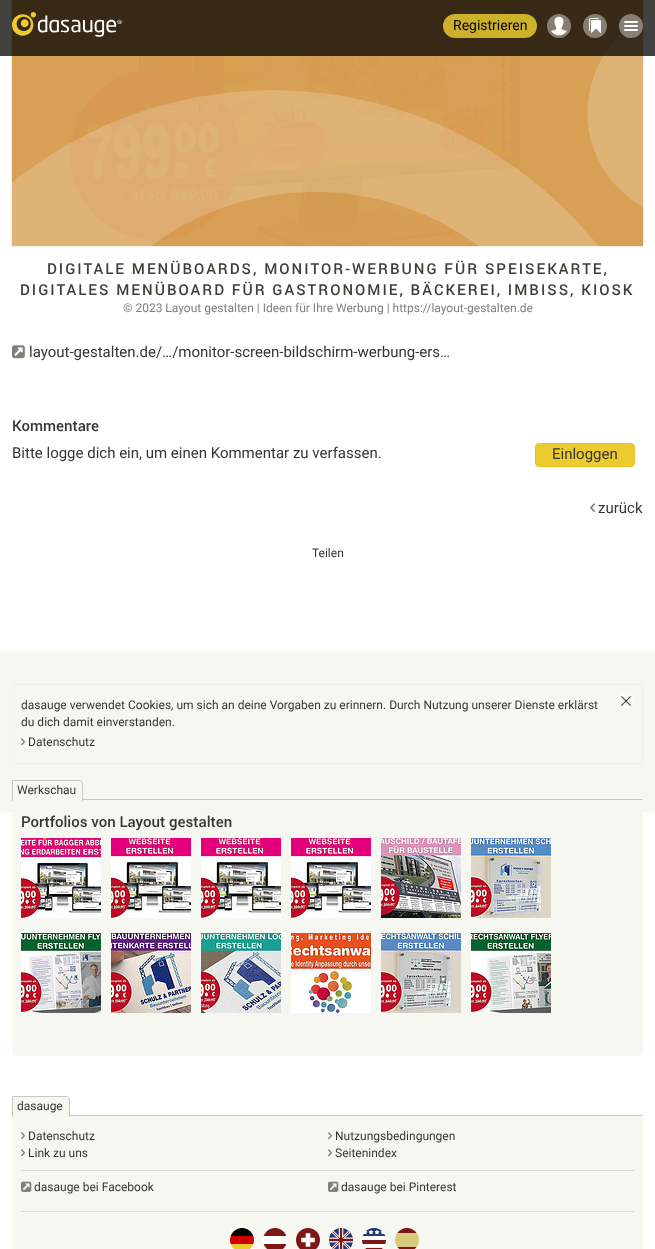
<?xml version="1.0" encoding="UTF-8"?>
<svg xmlns="http://www.w3.org/2000/svg" width="655" height="1249">
    <rect width="100%" height="100%" fill="#FFFFFF"/>
    <rect x="12" y="0" width="631" height="246" fill="#D89E51"/>
    <image x="12" y="19" width="631" height="227" href="img_05.png"/>
    <rect x="11.5" y="-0.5" width="632" height="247" fill="none" stroke="#F0F0E6"/>
    <image x="12" y="0" width="631" height="246" href="img_06.png"/>
    <rect x="0" y="0" width="655" height="56" fill="#020200" fill-opacity="0.75"/>
    <image x="12" y="12" width="110" height="25" href="img_01.png"/>
    <rect x="443" y="14" width="94" height="24" rx="12" fill="#CDB129"/>
    <text x="453" y="30" font-family="Roboto" font-size="14" fill="#000000">Registrieren</text>
    <image x="547" y="14" width="24" height="24" href="img_02.png"/>
    <image x="583" y="14" width="24" height="24" href="img_03.png"/>
    <image x="619" y="14" width="24" height="24" href="img_04.png"/>
    <text x="47" y="274" font-family="Roboto" font-size="15" font-weight="500" letter-spacing="2" fill="#404038">DIGITALE MENÜBOARDS, MONITOR-WERBUNG FÜR SPEISEKARTE,</text>
    <text x="20" y="295" font-family="Roboto" font-size="15" font-weight="500" letter-spacing="2" fill="#404038">DIGITALES MENÜBOARD FÜR GASTRONOMIE, BÄCKEREI, IMBISS, KIOSK</text>
    <text x="123" y="312" font-family="Roboto" font-size="12" fill="#808078">© 2023 Layout gestalten | Ideen für Ihre Werbung | https://layout-gestalten.de</text>
    <image x="12" y="345" width="13" height="14" href="img_07.png"/>
    <text x="29" y="357" font-family="Roboto" font-size="15" fill="#363634">layout-gestalten.de/…/monitor-screen-bildschirm-werbung-ers…</text>
    <text x="12" y="431" font-family="Roboto" font-size="15" font-weight="500" fill="#363634">Kommentare</text>
    <text x="12" y="458" font-family="Roboto" font-size="15" fill="#363634">Bitte logge dich ein, um einen Kommentar zu verfassen.</text>
    <rect x="535.5" y="443.5" width="99" height="23" rx="3.5" fill="#EBCB2F" stroke="#E5C324"/>
    <text x="552" y="459" font-family="Roboto" font-size="15" fill="#363634">Einloggen</text>
    <image x="590" y="503" width="5" height="9" href="img_08.png"/>
    <text x="598" y="513" font-family="Roboto" font-size="15" fill="#363634">zurück</text>
    <text x="312" y="557" font-family="Roboto" font-size="12" fill="#363634">Teilen</text>
    <rect x="0" y="652" width="655" height="160" fill="#F7F7F2"/>
    <rect x="12.5" y="684.5" width="630" height="79" rx="3.5" fill="none" stroke="#F0F0E6"/>
    <text font-family="Roboto" font-size="12" fill="#363634">
        <tspan x="21" y="709">dasauge verwendet Cookies, um sich an deine Vorgaben zu erinnern. Durch Nutzung unserer Dienste erklärst</tspan>
        <tspan x="21" y="726">du dich damit einverstanden.</tspan>
    </text>
    <image x="617" y="692" width="18" height="18" href="img_09.png"/>
    <image x="21" y="738" width="4" height="8" href="img_10.png"/>
    <text x="28" y="746" font-family="Roboto" font-size="12" fill="#363634">Datenschutz</text>
    <path d="M 12 799 H 643 V 1052 C 643 1054 641 1056 639 1056 H 16 C 14 1056 12 1054 12 1052 Z" fill="#F7F7F2"/>
    <path d="M 12 799 L 13 800 H 642 L 643 799 Z" fill="#C8C8BE"/>
    <path d="M 13 781 H 79 C 80.5 781 82 782.5 82 784 V 801 H 13 Z" fill="#F7F7F2"/>
    <path d="M 12 780 H 79 C 81 780 83 782 83 784 V 801 H 12 Z M 13 781 H 79 C 81 781 82 782 82 784 V 801 H 13 Z" fill="#C8C8BE" fill-rule="evenodd"/>
    <text x="17" y="794" font-family="Roboto" font-size="12" fill="#363634">Werkschau</text>
    <text x="21" y="827" font-family="Roboto" font-size="15" font-weight="500" fill="#363634">Portfolios von Layout gestalten</text>
    <image x="21" y="838" width="80" height="80" href="img_11.png"/>
    <image x="111" y="838" width="80" height="80" href="img_12.png"/>
    <image x="201" y="838" width="80" height="80" href="img_12.png"/>
    <image x="291" y="838" width="80" height="80" href="img_12.png"/>
    <image x="381" y="838" width="80" height="80" href="img_13.png"/>
    <image x="471" y="838" width="80" height="80" href="img_14.png"/>
    <image x="21" y="933" width="80" height="80" href="img_15.png"/>
    <image x="111" y="933" width="80" height="80" href="img_16.png"/>
    <image x="201" y="933" width="80" height="80" href="img_17.png"/>
    <image x="291" y="933" width="80" height="80" href="img_18.png"/>
    <image x="381" y="933" width="80" height="80" href="img_19.png"/>
    <image x="471" y="933" width="80" height="80" href="img_20.png"/>
    <rect x="12" y="1115" width="631" height="134" fill="#F7F7F2"/>
    <path d="M 12 1115 L 13 1116 H 642 L 643 1115 Z" fill="#C8C8BE"/>
    <path d="M 13 1097 H 66 C 67.5 1097 69 1098.5 69 1100 V 1117 H 13 Z" fill="#F7F7F2"/>
    <path d="M 12 1096 H 66 C 68 1096 70 1098 70 1100 V 1117 H 12 Z M 13 1097 H 66 C 68 1097 69 1098 69 1100 V 1117 H 13 Z" fill="#C8C8BE" fill-rule="evenodd"/>
    <text x="17" y="1110" font-family="Roboto" font-size="12" fill="#363634">dasauge</text>
    <image x="21" y="1132" width="4" height="8" href="img_10.png"/>
    <text x="28" y="1140" font-family="Roboto" font-size="12" fill="#363634">Datenschutz</text>
    <image x="328" y="1132" width="4" height="8" href="img_10.png"/>
    <text x="335" y="1140" font-family="Roboto" font-size="12" fill="#363634">Nutzungsbedingungen</text>
    <image x="21" y="1149" width="4" height="8" href="img_10.png"/>
    <text x="28" y="1157" font-family="Roboto" font-size="12" fill="#363634">Link zu uns</text>
    <image x="328" y="1149" width="4" height="8" href="img_10.png"/>
    <text x="335" y="1157" font-family="Roboto" font-size="12" fill="#363634">Seitenindex</text>
    <rect x="21" y="1170" width="613" height="1" fill="#DCDCD2"/>
    <image x="21" y="1181" width="11" height="11" href="img_21.png"/>
    <text x="34" y="1191" font-family="Roboto" font-size="12" fill="#363634">dasauge bei Facebook</text>
    <image x="328" y="1181" width="11" height="11" href="img_21.png"/>
    <text x="341" y="1191" font-family="Roboto" font-size="12" fill="#363634">dasauge bei Pinterest</text>
    <rect x="21" y="1211" width="613" height="1" fill="#DCDCD2"/>
    <rect x="230" y="1228" width="24" height="21" fill="#FFFFFF"/>
    <image x="230" y="1228" width="24" height="21" href="img_22.png"/>
    <image x="263" y="1228" width="24" height="21" href="img_23.png"/>
    <image x="296" y="1228" width="24" height="21" href="img_24.png"/>
    <image x="329" y="1228" width="24" height="21" href="img_25.png"/>
    <image x="362" y="1228" width="24" height="21" href="img_26.png"/>
    <image x="395" y="1228" width="24" height="21" href="img_27.png"/>
</svg>
